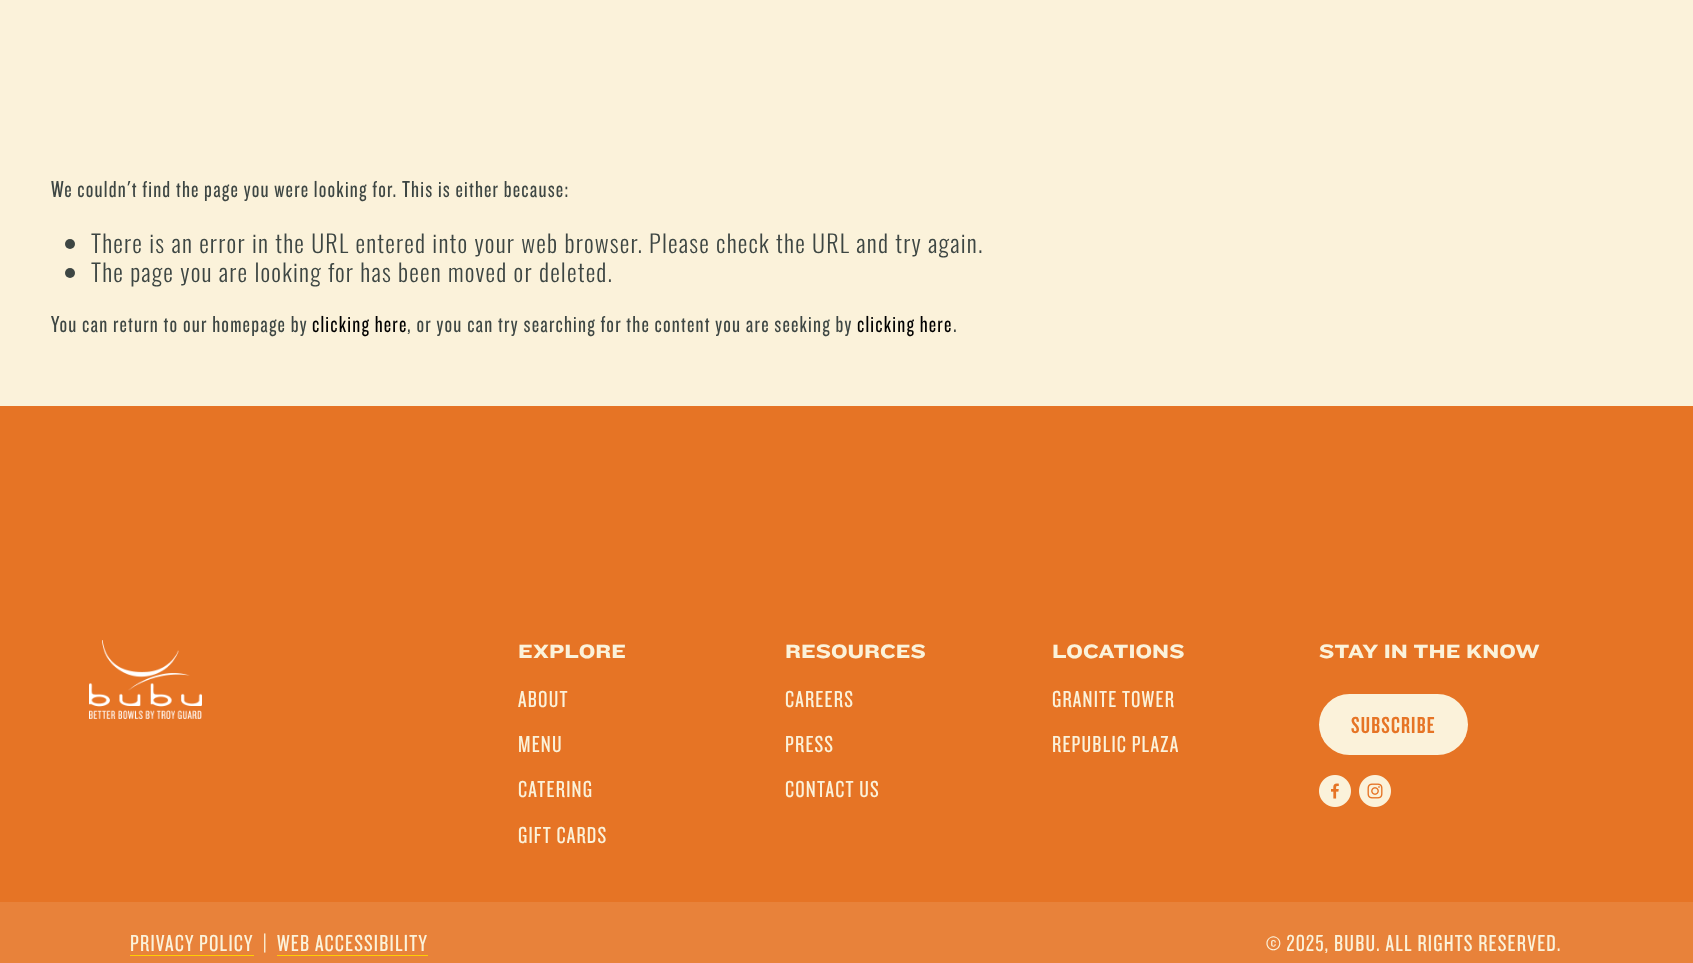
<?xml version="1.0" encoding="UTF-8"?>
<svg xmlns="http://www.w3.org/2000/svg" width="1693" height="963">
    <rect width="100%" height="100%" fill="#FBF2DA"/>
    <text x="51" y="197" font-family="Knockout" font-size="24.15" font-weight="300" letter-spacing="1.2" fill="#3D4643">We couldn't find the page you were looking for. This is either because:</text>
    <circle cx="70" cy="244" r="5" fill="#3D4643"/>
    <text x="91" y="253" font-family="Oswald" font-size="24.15" font-weight="300" letter-spacing="1.2" fill="#3D4643">There is an error in the URL entered into your web browser. Please check the URL and try again.</text>
    <circle cx="70" cy="273" r="5" fill="#3D4643"/>
    <text x="91" y="282" font-family="Oswald" font-size="24.15" font-weight="300" letter-spacing="1.2" fill="#3D4643">The page you are looking for has been moved or deleted.</text>
    <text x="51" y="332" font-family="Knockout" font-size="24.15" font-weight="300" letter-spacing="1.2" fill="#3D4643">You can return to our homepage by</text>
    <text x="312" y="332" font-family="Knockout" font-size="24.15" font-weight="300" letter-spacing="1.2" fill="#000000">clicking here</text>
    <text x="407" y="332" font-family="Knockout" font-size="24.15" font-weight="300" letter-spacing="1.2" fill="#3D4643">, or you can try searching for the content you are seeking by</text>
    <text x="857" y="332" font-family="Knockout" font-size="24.15" font-weight="300" letter-spacing="1.2" fill="#000000">clicking here</text>
    <text x="953" y="332" font-family="Knockout" font-size="24.15" font-weight="300" letter-spacing="1.2" fill="#3D4643">.</text>
    <rect x="0" y="406" width="1693" height="496" fill="#E67425"/>
    <image x="89" y="640" width="113" height="79" href="img_01.png"/>
    <text x="518" y="658" font-family="Knockout" font-size="20" fill="#FBF2DA">EXPLORE</text>
    <text x="785" y="658" font-family="Knockout" font-size="20" fill="#FBF2DA">RESOURCES</text>
    <text x="1052" y="658" font-family="Knockout" font-size="20" fill="#FBF2DA">LOCATIONS</text>
    <text x="1319" y="658" font-family="Knockout" font-size="20" fill="#FBF2DA">STAY IN THE KNOW</text>
    <text x="518" y="707" font-family="Knockout" font-size="24.15" font-weight="300" letter-spacing="1.2" fill="#FBF2DA">ABOUT</text>
    <text x="785" y="707" font-family="Knockout" font-size="24.15" font-weight="300" letter-spacing="1.2" fill="#FBF2DA">CAREERS</text>
    <text x="1052" y="707" font-family="Knockout" font-size="24.15" font-weight="300" letter-spacing="1.2" fill="#FBF2DA">GRANITE TOWER</text>
    <rect x="1319" y="694" width="149" height="61" rx="30.5" fill="#FBF2DA"/>
    <text x="1351" y="733" font-family="'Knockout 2'" font-size="24.15" letter-spacing="1.2" fill="#E67425">SUBSCRIBE</text>
    <text x="518" y="752" font-family="Knockout" font-size="24.15" font-weight="300" letter-spacing="1.2" fill="#FBF2DA">MENU</text>
    <text x="785" y="752" font-family="Knockout" font-size="24.15" font-weight="300" letter-spacing="1.2" fill="#FBF2DA">PRESS</text>
    <text x="1052" y="752" font-family="Knockout" font-size="24.15" font-weight="300" letter-spacing="1.2" fill="#FBF2DA">REPUBLIC PLAZA</text>
    <text x="518" y="797" font-family="Knockout" font-size="24.15" font-weight="300" letter-spacing="1.2" fill="#FBF2DA">CATERING</text>
    <text x="785" y="797" font-family="Knockout" font-size="24.15" font-weight="300" letter-spacing="1.2" fill="#FBF2DA">CONTACT US</text>
    <image x="1319" y="775" width="32" height="32" href="img_02.png"/>
    <image x="1359" y="775" width="32" height="32" href="img_03.png"/>
    <text x="518" y="843" font-family="Knockout" font-size="24.15" font-weight="300" letter-spacing="1.2" fill="#FBF2DA">GIFT CARDS</text>
    <rect x="0" y="902" width="1693" height="61" fill="#E8823A"/>
    <text x="130" y="951" font-family="Knockout" font-size="24.15" font-weight="300" letter-spacing="1.2" fill="#FBF2DA">PRIVACY POLICY</text>
    <rect x="130" y="955" width="124" height="1" fill="#FFCE02"/>
    <text x="263" y="951" font-family="Knockout" font-size="24.15" font-weight="300" letter-spacing="1.2" fill="#FBF2DA">|</text>
    <text x="277" y="951" font-family="Knockout" font-size="24.15" font-weight="300" letter-spacing="1.2" fill="#FBF2DA">WEB ACCESSIBILITY</text>
    <rect x="277" y="955" width="151" height="1" fill="#FFCE02"/>
    <text x="1266" y="951" font-family="Knockout" font-size="24.15" font-weight="300" letter-spacing="1.2" fill="#FBF2DA">© 2025, BUBU. ALL RIGHTS RESERVED.</text>
</svg>
